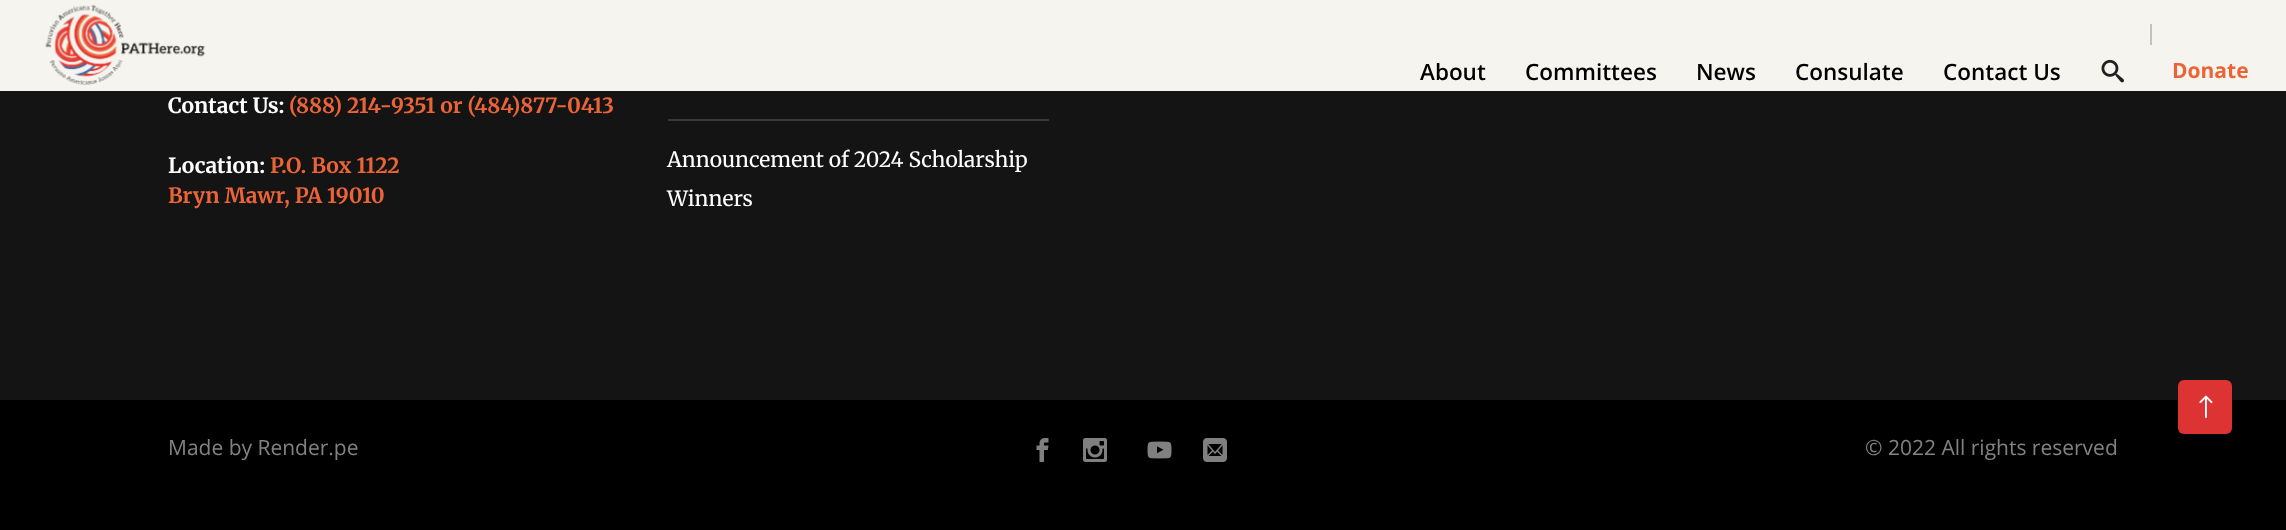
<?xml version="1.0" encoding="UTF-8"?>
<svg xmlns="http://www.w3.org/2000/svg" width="2286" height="530">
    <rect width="100%" height="100%" fill="#000000"/>
    <rect x="0" y="0" width="2286" height="91" fill="#F6F4EE"/>
    <image x="45" y="4" width="161" height="81" href="img_01.png"/>
    <text x="1420" y="80" font-family="Open Sans" font-size="22.5" font-weight="600" fill="#000000">About</text>
    <text x="1525" y="80" font-family="Open Sans" font-size="22.5" font-weight="600" fill="#000000">Committees</text>
    <text x="1696" y="80" font-family="Open Sans" font-size="22.5" font-weight="600" fill="#000000">News</text>
    <text x="1795" y="80" font-family="Open Sans" font-size="22.5" font-weight="600" fill="#000000">Consulate</text>
    <text x="1943" y="80" font-family="Open Sans" font-size="22.5" font-weight="600" fill="#000000">Contact Us</text>
    <image x="2101" y="59" width="23" height="24" href="img_02.png"/>
    <rect x="2150" y="24" width="2" height="21" fill="#C3C2BF"/>
    <text x="2172" y="78" font-family="Open Sans" font-size="21" font-weight="700" fill="#EB6438">Donate</text>
    <rect x="0" y="91" width="2286" height="309" fill="#141414"/>
    <text x="168" y="113" font-family="Merriweather" font-size="21" font-weight="700" fill="#FFFFFF">Contact Us:</text>
    <text x="289" y="113" font-family="Merriweather" font-size="21" font-weight="700" fill="#EB6438">(888) 214-9351 or (484)877-0413</text>
    <text x="168" y="173" font-family="Merriweather" font-size="21" font-weight="700" fill="#FFFFFF">Location:</text>
    <text x="270" y="173" font-family="Merriweather" font-size="21" font-weight="700" fill="#EB6438">P.O. Box 1122</text>
    <text x="168" y="203" font-family="Merriweather" font-size="21" font-weight="700" fill="#EB6438">Bryn Mawr, PA 19010</text>
    <rect x="668" y="119" width="381" height="2" fill="#393837"/>
    <text font-family="Merriweather" font-size="21" fill="#FFFFFF">
        <tspan x="667" y="167">Announcement of 2024 Scholarship</tspan>
        <tspan x="667" y="206">Winners</tspan>
    </text>
    <text x="168" y="455" font-family="Open Sans" font-size="21" fill="#828282">Made by Render.pe</text>
    <image x="1036" y="438" width="13" height="24" href="img_03.png"/>
    <image x="1083" y="438" width="24" height="24" href="img_04.png"/>
    <image x="1147" y="441" width="25" height="18" href="img_05.png"/>
    <image x="1203" y="438" width="24" height="24" href="img_06.png"/>
    <text x="1865" y="455" font-family="Open Sans" font-size="21" fill="#828282">© 2022 All rights reserved</text>
    <rect x="2178" y="380" width="54" height="54" rx="6" fill="#DD3333"/>
    <image x="2199" y="395" width="14" height="24" href="img_07.png"/>
</svg>
